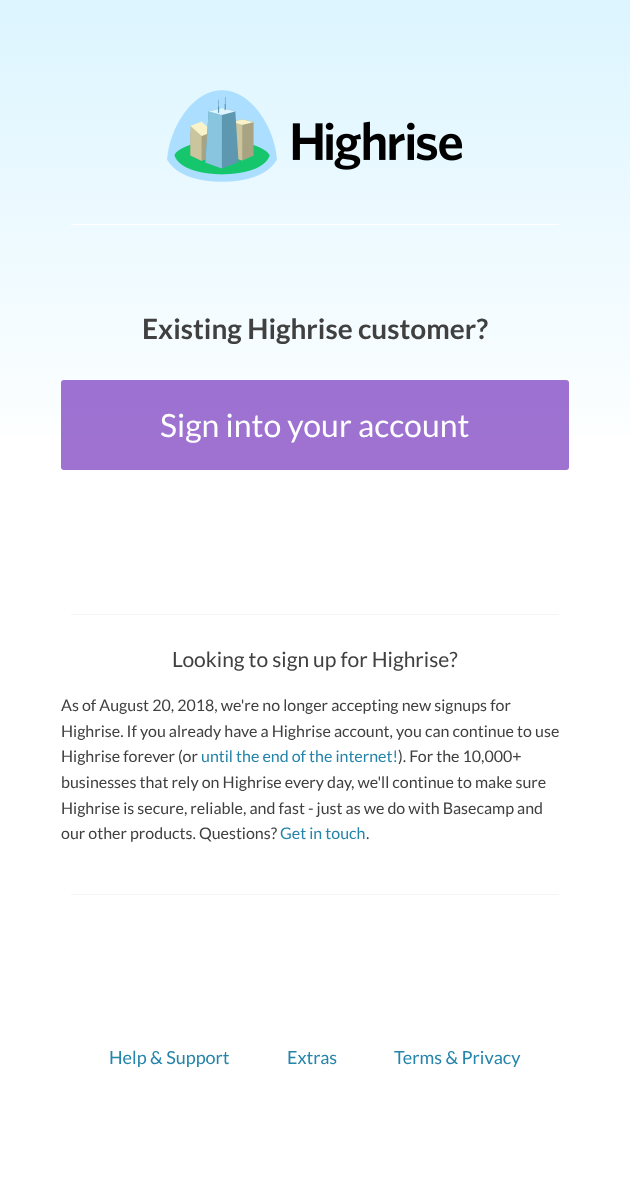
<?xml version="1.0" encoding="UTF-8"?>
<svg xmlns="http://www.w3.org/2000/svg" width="630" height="1192">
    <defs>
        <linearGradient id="g1" gradientUnits="userSpaceOnUse" x1="315" y1="0" x2="315" y2="1171"><stop offset="0" stop-color="#DCF5FF"/><stop offset="0.4" stop-color="#FFFFFF"/></linearGradient>
    </defs>
    <rect width="100%" height="100%" fill="#FFFFFF"/>
    <rect x="0" y="0" width="630" height="435" fill="url(#g1)"/>
    <image x="167" y="90" width="296" height="92" href="img_01.png"/>
    <rect x="71" y="224" width="488" height="1" fill="#FFFFFF"/>
    <text x="142" y="339" font-family="Lato" font-size="28" font-weight="700" fill="#404040">Existing Highrise customer?</text>
    <rect x="61" y="380" width="508" height="90" rx="3" fill="#5F14B2" fill-opacity="0.6"/>
    <text x="160" y="437" font-family="Lato" font-size="32" fill="#FFFFFF">Sign into your account</text>
    <rect x="71" y="614" width="488" height="1" fill="#F5F5F5"/>
    <text x="172" y="667" font-family="Lato" font-size="21" fill="#404040">Looking to sign up for Highrise?</text>
    <text font-family="Lato" font-size="16" fill="#404040">
        <tspan x="61" y="711">As of August 20, 2018, we're no longer accepting new signups for</tspan>
        <tspan x="61" y="737">Highrise. If you already have a Highrise account, you can continue to use</tspan>
        <tspan x="61" y="762">Highrise forever (or</tspan>
    </text>
    <text x="201" y="762" font-family="Lato" font-size="16" fill="#2484AA">until the end of the internet!</text>
    <text x="398" y="762" font-family="Lato" font-size="16" fill="#404040">). For the 10,000+</text>
    <text font-family="Lato" font-size="16" fill="#404040">
        <tspan x="61" y="788">businesses that rely on Highrise every day, we'll continue to make sure</tspan>
        <tspan x="61" y="814">Highrise is secure, reliable, and fast - just as we do with Basecamp and</tspan>
        <tspan x="61" y="839">our other products. Questions?</tspan>
    </text>
    <text x="280" y="839" font-family="Lato" font-size="16" fill="#2484AA">Get in touch</text>
    <text x="366" y="839" font-family="Lato" font-size="16" fill="#404040">.</text>
    <rect x="71" y="894" width="488" height="1" fill="#F5F5F5"/>
    <text x="109" y="1064" font-family="Lato" font-size="18" fill="#2484AA">Help &amp; Support</text>
    <text x="287" y="1064" font-family="Lato" font-size="18" fill="#2484AA">Extras</text>
    <text x="394" y="1064" font-family="Lato" font-size="18" fill="#2484AA">Terms &amp; Privacy</text>
</svg>
